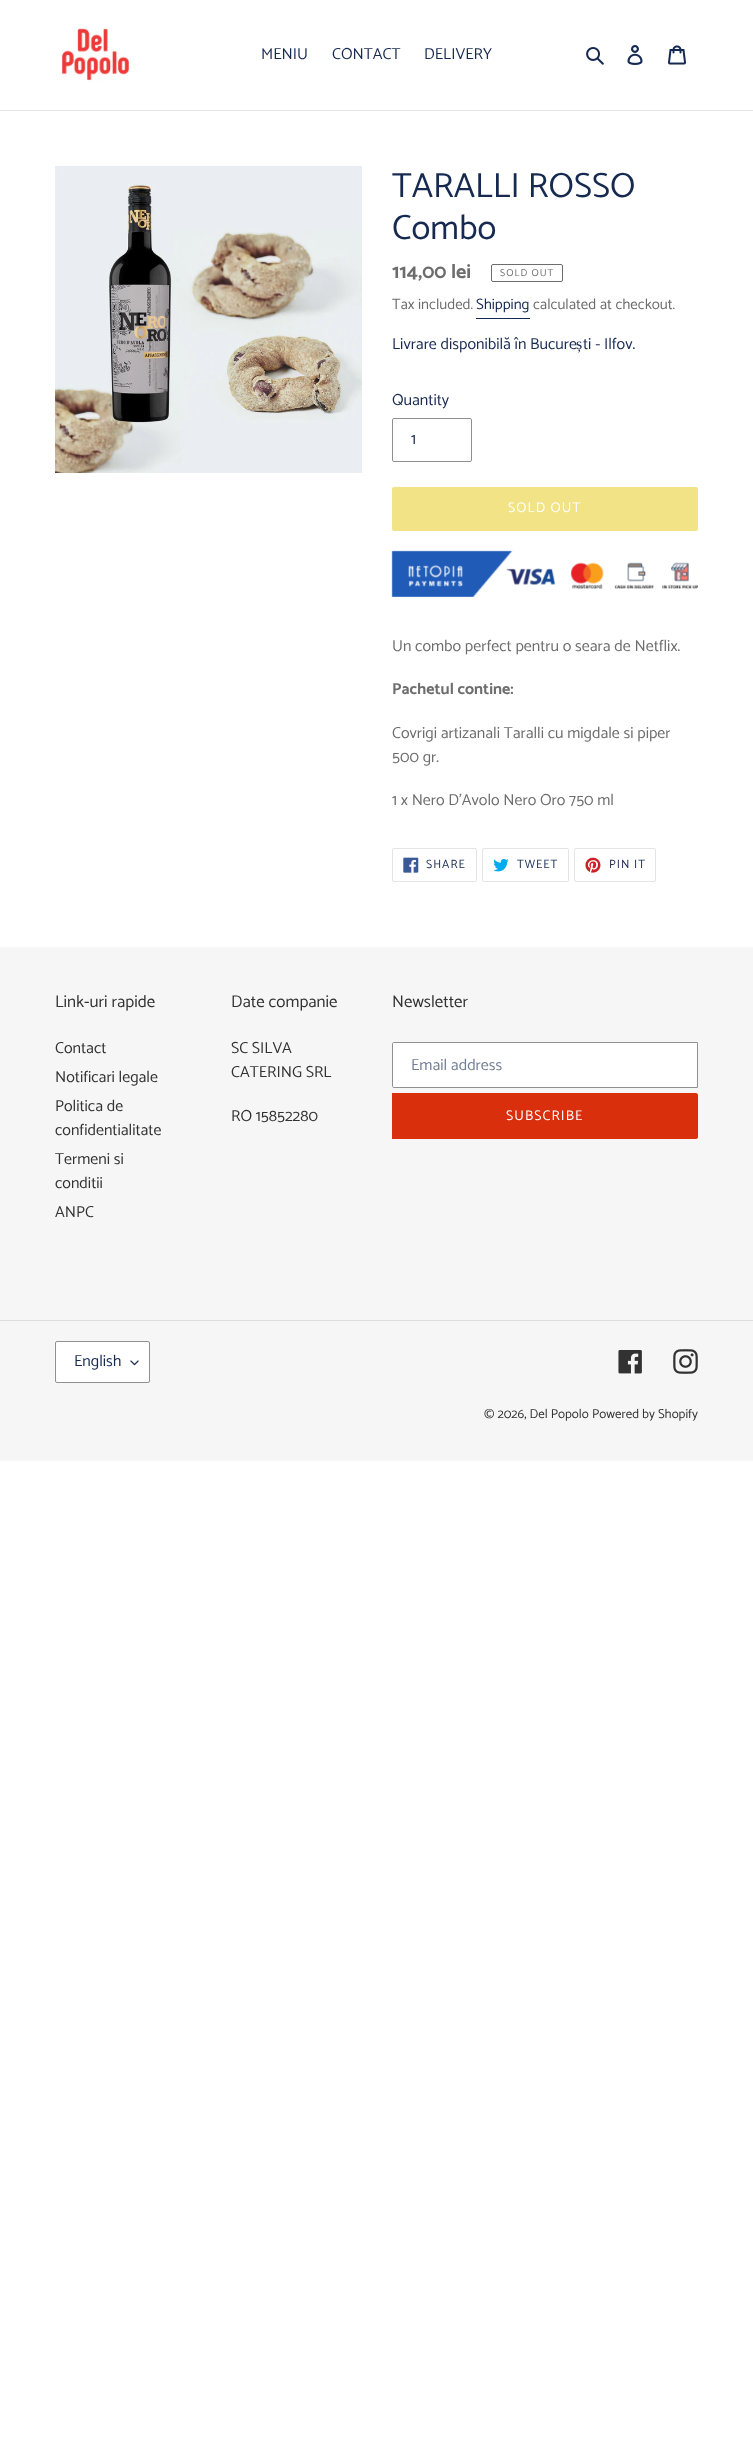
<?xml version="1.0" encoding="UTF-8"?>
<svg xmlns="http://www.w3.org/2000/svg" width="753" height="2439">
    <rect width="100%" height="100%" fill="#FFFFFF"/>
    <rect x="0" y="110" width="753" height="1" fill="#E4E4E4"/>
    <image x="61" y="28" width="69" height="55" href="img_01.png"/>
    <text x="261" y="59" font-family="Catamaran" font-size="16" fill="#162950">MENIU</text>
    <text x="332" y="59" font-family="Catamaran" font-size="16" fill="#162950">CONTACT</text>
    <text x="424" y="59" font-family="Catamaran" font-size="16" fill="#162950">DELIVERY</text>
    <image x="586" y="47" width="18" height="18" href="img_02.png"/>
    <image x="627" y="45" width="16" height="20" href="img_03.png"/>
    <image x="668" y="45" width="18" height="20" href="img_04.png"/>
    <image x="55" y="166" width="307" height="307" href="img_05.png"/>
    <text font-family="Catamaran" font-size="35" fill="#162950">
        <tspan x="392" y="197">TARALLI ROSSO</tspan>
        <tspan x="392" y="239">Combo</tspan>
    </text>
    <text x="392" y="278" font-family="Catamaran" font-size="20" font-weight="700" fill="#6D6D6D">114,00 lei</text>
    <rect x="491.5" y="264.5" width="71" height="17" rx="1.5" fill="none" stroke="#6D6D6D"/>
    <text x="500" y="276" font-family="Catamaran" font-size="10" letter-spacing="1" fill="#6D6D6D">SOLD OUT</text>
    <text x="392" y="309" font-family="Catamaran" font-size="15" fill="#6D6D6D">Tax included.</text>
    <text x="476" y="309" font-family="Catamaran" font-size="15" fill="#162950">Shipping</text>
    <rect x="476" y="318" width="54" height="1" fill="#162950"/>
    <text x="533" y="309" font-family="Catamaran" font-size="15" fill="#6D6D6D">calculated at checkout.</text>
    <text x="392" y="349" font-family="Catamaran" font-size="16" fill="#162950">Livrare disponibilă în Bucure</text>
    <text x="576" y="349" font-family="Liberation Serif" font-size="16" fill="#162950">ș</text>
    <text x="583" y="349" font-family="Catamaran" font-size="16" fill="#162950">ti - Ilfov.</text>
    <text x="392" y="405" font-family="Catamaran" font-size="16" fill="#162950">Quantity</text>
    <rect x="392.5" y="418.5" width="79" height="43" rx="1.5" fill="none" stroke="#909090"/>
    <text x="411" y="444" font-family="Catamaran" font-size="16" fill="#162950">1</text>
    <rect x="392" y="487" width="306" height="44" rx="2" fill="#F3E387"/>
    <text x="508" y="512" font-family="Catamaran" font-size="14" letter-spacing="1.1" fill="#FFFFFF">SOLD OUT</text>
    <image x="391" y="550" width="307" height="47" href="img_06.png"/>
    <text x="392" y="651" font-family="Catamaran" font-size="16" fill="#6D6D6D">Un combo perfect pentru o seara de Netflix.</text>
    <text x="392" y="694" font-family="Catamaran" font-size="16" font-weight="700" fill="#6D6D6D">Pachetul contine:</text>
    <text font-family="Catamaran" font-size="16" fill="#6D6D6D">
        <tspan x="392" y="738">Covrigi artizanali Taralli cu migdale si piper</tspan>
        <tspan x="392" y="762">500 gr.</tspan>
    </text>
    <text x="392" y="805" font-family="Catamaran" font-size="16" fill="#6D6D6D">1 x Nero D'Avolo Nero Oro 750 ml</text>
    <rect x="392.5" y="848.5" width="84" height="33" rx="1.5" fill="none" stroke="#E4E4E4"/>
    <image x="403" y="857" width="16" height="16" href="img_07.png"/>
    <text x="426" y="868" font-family="Catamaran" font-size="12" letter-spacing="1" fill="#162950">SHARE</text>
    <rect x="482.5" y="848.5" width="86" height="33" rx="1.5" fill="none" stroke="#E4E4E4"/>
    <image x="493" y="858" width="16" height="14" href="img_08.png"/>
    <text x="517" y="868" font-family="Catamaran" font-size="12" letter-spacing="1" fill="#162950">TWEET</text>
    <rect x="574.5" y="848.5" width="81" height="33" rx="1.5" fill="none" stroke="#E4E4E4"/>
    <image x="585" y="857" width="16" height="16" href="img_09.png"/>
    <text x="609" y="868" font-family="Catamaran" font-size="12" letter-spacing="1" fill="#162950">PIN IT</text>
    <rect x="0" y="947" width="753" height="514" fill="#F6F6F6"/>
    <text x="55" y="1007" font-family="Catamaran" font-size="17" fill="#333232">Link-uri rapide</text>
    <text font-family="Catamaran" font-size="16" fill="#333232">
        <tspan x="55" y="1053">Contact</tspan>
        <tspan x="55" y="1082">Notificari legale</tspan>
        <tspan x="55" y="1111">Politica de</tspan>
        <tspan x="55" y="1135">confidentialitate</tspan>
        <tspan x="55" y="1164">Termeni si</tspan>
        <tspan x="55" y="1188">conditii</tspan>
        <tspan x="55" y="1217">ANPC</tspan>
    </text>
    <text x="231" y="1007" font-family="Catamaran" font-size="17" fill="#333232">Date companie</text>
    <text font-family="Catamaran" font-size="16" fill="#333232">
        <tspan x="231" y="1053">SC SILVA</tspan>
        <tspan x="231" y="1077">CATERING SRL</tspan>
    </text>
    <text x="231" y="1121" font-family="Catamaran" font-size="16" fill="#333232">RO 15852280</text>
    <text x="392" y="1007" font-family="Catamaran" font-size="17" fill="#333232">Newsletter</text>
    <path d="M 394 1042.5 H 697.5 V 1087.5 H 394 C 393 1087.5 392.5 1087 392.5 1086 V 1044 C 392.5 1043 393 1042.5 394 1042.5 Z" fill="#FFFFFF" stroke="#909090"/>
    <text x="411" y="1070" font-family="Catamaran" font-size="16" fill="#737F96">Email address</text>
    <path d="M 392 1093 H 696 C 697 1093 698 1094 698 1095 V 1137 C 698 1138 697 1139 696 1139 H 392 Z" fill="#DA2F0C"/>
    <text x="506" y="1120" font-family="Catamaran" font-size="14" letter-spacing="1.1" fill="#FFFFFF">SUBSCRIBE</text>
    <rect x="0" y="1320" width="753" height="1" fill="#DDDDDD"/>
    <rect x="55" y="1341" width="95" height="42" rx="2" fill="#FFFFFF"/>
    <image x="130" y="1360" width="9" height="6" href="img_10.png"/>
    <rect x="55.5" y="1341.5" width="94" height="41" rx="1.5" fill="none" stroke="#909090"/>
    <text x="74" y="1366" font-family="Catamaran" font-size="16" fill="#162950">English</text>
    <image x="618" y="1350" width="24" height="24" href="img_11.png"/>
    <image x="673" y="1349" width="25" height="25" href="img_12.png"/>
    <text x="484" y="1418" font-family="Catamaran" font-size="13" fill="#333232">© 2026, Del Popolo</text>
    <text x="592" y="1418" font-family="Catamaran" font-size="13" fill="#333232">Powered by Shopify</text>
</svg>
